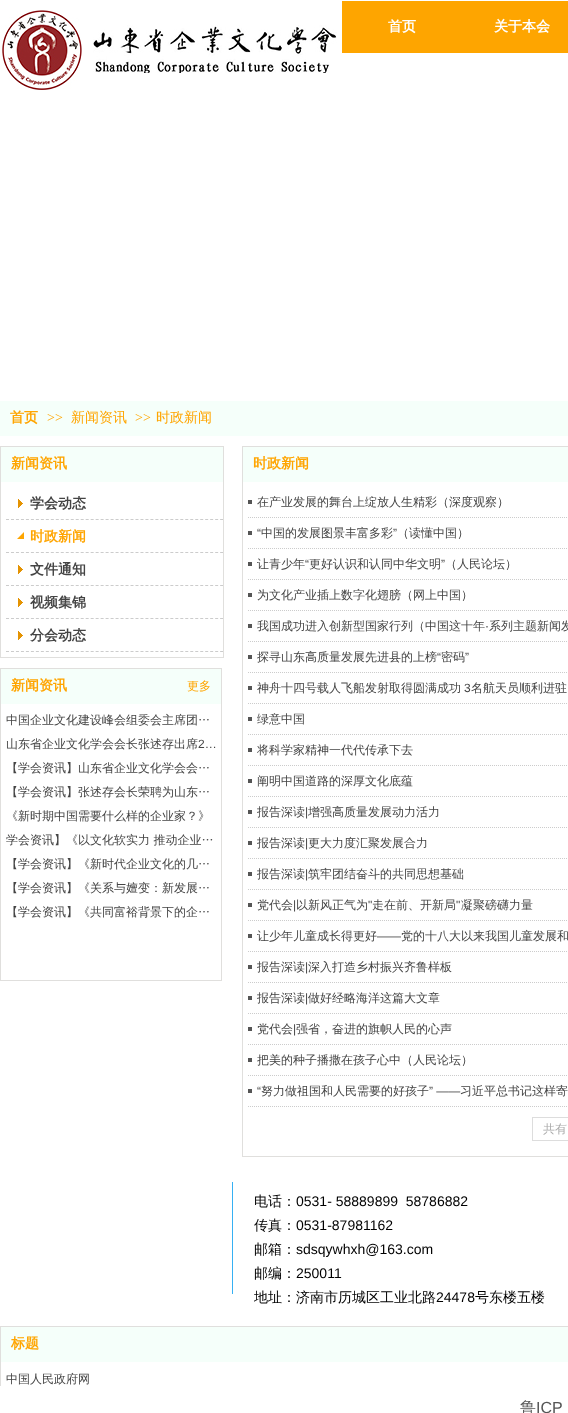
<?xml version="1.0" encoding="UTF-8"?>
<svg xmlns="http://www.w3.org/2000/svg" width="568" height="1413">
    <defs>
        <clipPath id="clip1"><rect x="6" y="487" width="217" height="33"/></clipPath>
        <clipPath id="clip2"><rect x="6" y="520" width="217" height="33"/></clipPath>
        <clipPath id="clip3"><rect x="6" y="553" width="217" height="33"/></clipPath>
        <clipPath id="clip4"><rect x="6" y="586" width="217" height="33"/></clipPath>
        <clipPath id="clip5"><rect x="6" y="619" width="217" height="33"/></clipPath>
        <clipPath id="clip6"><rect x="0" y="1167" width="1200" height="219"/></clipPath>
    </defs>
    <rect width="100%" height="100%" fill="#FFFFFF"/>
    <image x="93" y="25" width="244" height="48" href="img_01.png"/>
    <image x="0" y="10" width="82" height="80" href="img_02.png"/>
    <rect x="342" y="1" width="226" height="52" fill="#FEA500"/>
    <text x="388" y="31" font-family="WenQuanYi Zen Hei" font-size="14" font-weight="700" fill="#FFFFFF">首页</text>
    <text x="494" y="31" font-family="WenQuanYi Zen Hei" font-size="14" font-weight="700" fill="#FFFFFF">关于本会</text>
    <rect x="0" y="401" width="568" height="35" fill="#F5FFFA"/>
    <text x="10" y="422" font-family="WenQuanYi Zen Hei" font-size="14" font-weight="700" fill="#FFA500">首页</text>
    <text x="47" y="422" font-family="Liberation Serif" font-size="14" fill="#FFA500">&gt;&gt;</text>
    <text x="71" y="422" font-family="WenQuanYi Zen Hei" font-size="14" font-weight="500" fill="#FFA500">新闻资讯</text>
    <text x="135" y="422" font-family="Liberation Serif" font-size="14" fill="#FFA500">&gt;&gt;</text>
    <text x="156" y="422" font-family="WenQuanYi Zen Hei" font-size="14" font-weight="500" fill="#FFA500">时政新闻</text>
    <rect x="0.5" y="446.5" width="223" height="211" fill="none" stroke="#E0DFDD"/>
    <rect x="1" y="447" width="222" height="35" fill="#F5FFFA"/>
    <text x="11" y="468" font-family="WenQuanYi Zen Hei" font-size="14" font-weight="700" fill="#FFA500">新闻资讯</text>
    <g clip-path="url(#clip1)">
        <path d="M 6 519.5 H 228" fill="none" stroke="#CCCCCC" stroke-dasharray="3 1.98"/>
    </g>
    <image x="18" y="499" width="5" height="9" href="img_03.png"/>
    <text x="30" y="508" font-family="WenQuanYi Zen Hei" font-size="14" font-weight="700" fill="#444444">学会动态</text>
    <g clip-path="url(#clip2)">
        <path d="M 6 552.5 H 228" fill="none" stroke="#CCCCCC" stroke-dasharray="3 1.98"/>
    </g>
    <image x="17" y="532" width="7" height="7" href="img_04.png"/>
    <text x="30" y="541" font-family="WenQuanYi Zen Hei" font-size="14" font-weight="700" fill="#FFA500">时政新闻</text>
    <g clip-path="url(#clip3)">
        <path d="M 6 585.5 H 228" fill="none" stroke="#CCCCCC" stroke-dasharray="3 1.98"/>
    </g>
    <image x="18" y="565" width="5" height="9" href="img_03.png"/>
    <text x="30" y="574" font-family="WenQuanYi Zen Hei" font-size="14" font-weight="700" fill="#444444">文件通知</text>
    <g clip-path="url(#clip4)">
        <path d="M 6 618.5 H 228" fill="none" stroke="#CCCCCC" stroke-dasharray="3 1.98"/>
    </g>
    <image x="18" y="598" width="5" height="9" href="img_03.png"/>
    <text x="30" y="607" font-family="WenQuanYi Zen Hei" font-size="14" font-weight="700" fill="#444444">视频集锦</text>
    <g clip-path="url(#clip5)">
        <path d="M 6 651.5 H 228" fill="none" stroke="#CCCCCC" stroke-dasharray="3 1.98"/>
    </g>
    <image x="18" y="631" width="5" height="9" href="img_03.png"/>
    <text x="30" y="640" font-family="WenQuanYi Zen Hei" font-size="14" font-weight="700" fill="#444444">分会动态</text>
    <rect x="0.5" y="668.5" width="221" height="312" fill="none" stroke="#E0DFDD"/>
    <rect x="1" y="669" width="220" height="35" fill="#F5FFFA"/>
    <text x="11" y="690" font-family="WenQuanYi Zen Hei" font-size="14" font-weight="700" fill="#FFA500">新闻资讯</text>
    <text x="187" y="690" font-family="WenQuanYi Zen Hei" font-size="12" font-weight="500" fill="#FFA500">更多</text>
    <text x="6" y="724" font-family="WenQuanYi Zen Hei" font-size="12" font-weight="500" fill="#444444">中国企业文化建设峰会组委会主席团…</text>
    <text x="6" y="748" font-family="WenQuanYi Zen Hei" font-size="12" font-weight="500" fill="#444444">山东省企业文化学会会长张述存出席</text>
    <text x="198" y="748" font-family="Liberation Sans" font-size="12" fill="#444444">2…</text>
    <text x="6" y="772" font-family="WenQuanYi Zen Hei" font-size="12" font-weight="500" fill="#444444">【学会资讯】山东省企业文化学会会…</text>
    <text x="6" y="796" font-family="WenQuanYi Zen Hei" font-size="12" font-weight="500" fill="#444444">【学会资讯】张述存会长荣聘为山东…</text>
    <text x="6" y="820" font-family="WenQuanYi Zen Hei" font-size="12" font-weight="500" fill="#444444">《新时期中国需要什么样的企业家？》</text>
    <text x="6" y="844" font-family="WenQuanYi Zen Hei" font-size="12" font-weight="500" fill="#444444">学会资讯】《以文化软实力 推动企业…</text>
    <text x="6" y="868" font-family="WenQuanYi Zen Hei" font-size="12" font-weight="500" fill="#444444">【学会资讯】《新时代企业文化的几…</text>
    <text x="6" y="892" font-family="WenQuanYi Zen Hei" font-size="12" font-weight="500" fill="#444444">【学会资讯】《关系与嬗变：新发展…</text>
    <text x="6" y="916" font-family="WenQuanYi Zen Hei" font-size="12" font-weight="500" fill="#444444">【学会资讯】《共同富裕背景下的企…</text>
    <rect x="242.5" y="446.5" width="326" height="710" fill="none" stroke="#E0DFDD"/>
    <rect x="243" y="447" width="325" height="35" fill="#F5FFFA"/>
    <text x="253" y="468" font-family="WenQuanYi Zen Hei" font-size="14" font-weight="700" fill="#FFA500">时政新闻</text>
    <path d="M 248 517.5 H 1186" fill="none" stroke="#CCCCCC" stroke-dasharray="1 1"/>
    <rect x="248" y="500" width="4" height="4" fill="#555555"/>
    <text x="257" y="506" font-family="WenQuanYi Zen Hei" font-size="12" font-weight="500" fill="#444444">在产业发展的舞台上绽放人生精彩（深度观察）</text>
    <path d="M 248 548.5 H 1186" fill="none" stroke="#CCCCCC" stroke-dasharray="1 1"/>
    <rect x="248" y="531" width="4" height="4" fill="#555555"/>
    <text x="257" y="537" font-family="Liberation Sans" font-size="12" fill="#444444">“</text>
    <text x="261" y="537" font-family="WenQuanYi Zen Hei" font-size="12" font-weight="500" fill="#444444">中国的发展图景丰富多彩</text>
    <text x="393" y="537" font-family="Liberation Sans" font-size="12" fill="#444444">”</text>
    <text x="397" y="537" font-family="WenQuanYi Zen Hei" font-size="12" font-weight="500" fill="#444444">（读懂中国）</text>
    <path d="M 248 579.5 H 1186" fill="none" stroke="#CCCCCC" stroke-dasharray="1 1"/>
    <rect x="248" y="562" width="4" height="4" fill="#555555"/>
    <text x="257" y="568" font-family="WenQuanYi Zen Hei" font-size="12" font-weight="500" fill="#444444">让青少年</text>
    <text x="305" y="568" font-family="Liberation Sans" font-size="12" fill="#444444">“</text>
    <text x="309" y="568" font-family="WenQuanYi Zen Hei" font-size="12" font-weight="500" fill="#444444">更好认识和认同中华文明</text>
    <text x="441" y="568" font-family="Liberation Sans" font-size="12" fill="#444444">”</text>
    <text x="445" y="568" font-family="WenQuanYi Zen Hei" font-size="12" font-weight="500" fill="#444444">（人民论坛）</text>
    <path d="M 248 610.5 H 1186" fill="none" stroke="#CCCCCC" stroke-dasharray="1 1"/>
    <rect x="248" y="593" width="4" height="4" fill="#555555"/>
    <text x="257" y="599" font-family="WenQuanYi Zen Hei" font-size="12" font-weight="500" fill="#444444">为文化产业插上数字化翅膀（网上中国）</text>
    <path d="M 248 641.5 H 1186" fill="none" stroke="#CCCCCC" stroke-dasharray="1 1"/>
    <rect x="248" y="624" width="4" height="4" fill="#555555"/>
    <text x="257" y="630" font-family="WenQuanYi Zen Hei" font-size="12" font-weight="500" fill="#444444">我国成功进入创新型国家行列（中国这十年</text>
    <text x="485" y="630" font-family="Liberation Sans" font-size="12" fill="#444444">·</text>
    <text x="489" y="630" font-family="WenQuanYi Zen Hei" font-size="12" font-weight="500" fill="#444444">系列主题新闻发</text>
    <path d="M 248 672.5 H 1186" fill="none" stroke="#CCCCCC" stroke-dasharray="1 1"/>
    <rect x="248" y="655" width="4" height="4" fill="#555555"/>
    <text x="257" y="661" font-family="WenQuanYi Zen Hei" font-size="12" font-weight="500" fill="#444444">探寻山东高质量发展先进县的上榜</text>
    <text x="437" y="661" font-family="Liberation Sans" font-size="12" fill="#444444">“</text>
    <text x="441" y="661" font-family="WenQuanYi Zen Hei" font-size="12" font-weight="500" fill="#444444">密码</text>
    <text x="465" y="661" font-family="Liberation Sans" font-size="12" fill="#444444">”</text>
    <path d="M 248 703.5 H 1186" fill="none" stroke="#CCCCCC" stroke-dasharray="1 1"/>
    <rect x="248" y="686" width="4" height="4" fill="#555555"/>
    <text x="257" y="692" font-family="WenQuanYi Zen Hei" font-size="12" font-weight="500" fill="#444444">神舟十四号载人飞船发射取得圆满成功</text>
    <text x="464" y="692" font-family="Liberation Sans" font-size="12" fill="#444444">3</text>
    <text x="471" y="692" font-family="WenQuanYi Zen Hei" font-size="12" font-weight="500" fill="#444444">名航天员顺利进驻</text>
    <path d="M 248 734.5 H 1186" fill="none" stroke="#CCCCCC" stroke-dasharray="1 1"/>
    <rect x="248" y="717" width="4" height="4" fill="#555555"/>
    <text x="257" y="723" font-family="WenQuanYi Zen Hei" font-size="12" font-weight="500" fill="#444444">绿意中国</text>
    <path d="M 248 765.5 H 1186" fill="none" stroke="#CCCCCC" stroke-dasharray="1 1"/>
    <rect x="248" y="748" width="4" height="4" fill="#555555"/>
    <text x="257" y="754" font-family="WenQuanYi Zen Hei" font-size="12" font-weight="500" fill="#444444">将科学家精神一代代传承下去</text>
    <path d="M 248 796.5 H 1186" fill="none" stroke="#CCCCCC" stroke-dasharray="1 1"/>
    <rect x="248" y="779" width="4" height="4" fill="#555555"/>
    <text x="257" y="785" font-family="WenQuanYi Zen Hei" font-size="12" font-weight="500" fill="#444444">阐明中国道路的深厚文化底蕴</text>
    <path d="M 248 827.5 H 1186" fill="none" stroke="#CCCCCC" stroke-dasharray="1 1"/>
    <rect x="248" y="810" width="4" height="4" fill="#555555"/>
    <text x="257" y="816" font-family="WenQuanYi Zen Hei" font-size="12" font-weight="500" fill="#444444">报告深读</text>
    <text x="305" y="816" font-family="Liberation Sans" font-size="12" fill="#444444">|</text>
    <text x="308" y="816" font-family="WenQuanYi Zen Hei" font-size="12" font-weight="500" fill="#444444">增强高质量发展动力活力</text>
    <path d="M 248 858.5 H 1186" fill="none" stroke="#CCCCCC" stroke-dasharray="1 1"/>
    <rect x="248" y="841" width="4" height="4" fill="#555555"/>
    <text x="257" y="847" font-family="WenQuanYi Zen Hei" font-size="12" font-weight="500" fill="#444444">报告深读</text>
    <text x="305" y="847" font-family="Liberation Sans" font-size="12" fill="#444444">|</text>
    <text x="308" y="847" font-family="WenQuanYi Zen Hei" font-size="12" font-weight="500" fill="#444444">更大力度汇聚发展合力</text>
    <path d="M 248 889.5 H 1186" fill="none" stroke="#CCCCCC" stroke-dasharray="1 1"/>
    <rect x="248" y="872" width="4" height="4" fill="#555555"/>
    <text x="257" y="878" font-family="WenQuanYi Zen Hei" font-size="12" font-weight="500" fill="#444444">报告深读</text>
    <text x="305" y="878" font-family="Liberation Sans" font-size="12" fill="#444444">|</text>
    <text x="308" y="878" font-family="WenQuanYi Zen Hei" font-size="12" font-weight="500" fill="#444444">筑牢团结奋斗的共同思想基础</text>
    <path d="M 248 920.5 H 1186" fill="none" stroke="#CCCCCC" stroke-dasharray="1 1"/>
    <rect x="248" y="903" width="4" height="4" fill="#555555"/>
    <text x="257" y="909" font-family="WenQuanYi Zen Hei" font-size="12" font-weight="500" fill="#444444">党代会</text>
    <text x="293" y="909" font-family="Liberation Sans" font-size="12" fill="#444444">|</text>
    <text x="296" y="909" font-family="WenQuanYi Zen Hei" font-size="12" font-weight="500" fill="#444444">以新风正气为</text>
    <text x="368" y="909" font-family="Liberation Sans" font-size="12" fill="#444444">"</text>
    <text x="372" y="909" font-family="WenQuanYi Zen Hei" font-size="12" font-weight="500" fill="#444444">走在前、开新局</text>
    <text x="456" y="909" font-family="Liberation Sans" font-size="12" fill="#444444">"</text>
    <text x="461" y="909" font-family="WenQuanYi Zen Hei" font-size="12" font-weight="500" fill="#444444">凝聚磅礴力量</text>
    <path d="M 248 951.5 H 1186" fill="none" stroke="#CCCCCC" stroke-dasharray="1 1"/>
    <rect x="248" y="934" width="4" height="4" fill="#555555"/>
    <text x="257" y="940" font-family="WenQuanYi Zen Hei" font-size="12" font-weight="500" fill="#444444">让少年儿童成长得更好</text>
    <text x="377" y="940" font-family="Liberation Sans" font-size="12" fill="#444444">——</text>
    <text x="401" y="940" font-family="WenQuanYi Zen Hei" font-size="12" font-weight="500" fill="#444444">党的十八大以来我国儿童发展和</text>
    <path d="M 248 982.5 H 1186" fill="none" stroke="#CCCCCC" stroke-dasharray="1 1"/>
    <rect x="248" y="965" width="4" height="4" fill="#555555"/>
    <text x="257" y="971" font-family="WenQuanYi Zen Hei" font-size="12" font-weight="500" fill="#444444">报告深读</text>
    <text x="305" y="971" font-family="Liberation Sans" font-size="12" fill="#444444">|</text>
    <text x="308" y="971" font-family="WenQuanYi Zen Hei" font-size="12" font-weight="500" fill="#444444">深入打造乡村振兴齐鲁样板</text>
    <path d="M 248 1013.5 H 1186" fill="none" stroke="#CCCCCC" stroke-dasharray="1 1"/>
    <rect x="248" y="996" width="4" height="4" fill="#555555"/>
    <text x="257" y="1002" font-family="WenQuanYi Zen Hei" font-size="12" font-weight="500" fill="#444444">报告深读</text>
    <text x="305" y="1002" font-family="Liberation Sans" font-size="12" fill="#444444">|</text>
    <text x="308" y="1002" font-family="WenQuanYi Zen Hei" font-size="12" font-weight="500" fill="#444444">做好经略海洋这篇大文章</text>
    <path d="M 248 1044.5 H 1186" fill="none" stroke="#CCCCCC" stroke-dasharray="1 1"/>
    <rect x="248" y="1027" width="4" height="4" fill="#555555"/>
    <text x="257" y="1033" font-family="WenQuanYi Zen Hei" font-size="12" font-weight="500" fill="#444444">党代会</text>
    <text x="293" y="1033" font-family="Liberation Sans" font-size="12" fill="#444444">|</text>
    <text x="296" y="1033" font-family="WenQuanYi Zen Hei" font-size="12" font-weight="500" fill="#444444">强省，奋进的旗帜人民的心声</text>
    <path d="M 248 1075.5 H 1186" fill="none" stroke="#CCCCCC" stroke-dasharray="1 1"/>
    <rect x="248" y="1058" width="4" height="4" fill="#555555"/>
    <text x="257" y="1064" font-family="WenQuanYi Zen Hei" font-size="12" font-weight="500" fill="#444444">把美的种子播撒在孩子心中（人民论坛）</text>
    <path d="M 248 1106.5 H 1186" fill="none" stroke="#CCCCCC" stroke-dasharray="1 1"/>
    <rect x="248" y="1089" width="4" height="4" fill="#555555"/>
    <text x="257" y="1095" font-family="Liberation Sans" font-size="12" fill="#444444">“</text>
    <text x="261" y="1095" font-family="WenQuanYi Zen Hei" font-size="12" font-weight="500" fill="#444444">努力做祖国和人民需要的好孩子</text>
    <text x="429" y="1095" font-family="Liberation Sans" font-size="12" fill="#444444">” ——</text>
    <text x="460" y="1095" font-family="WenQuanYi Zen Hei" font-size="12" font-weight="500" fill="#444444">习近平总书记这样寄</text>
    <rect x="532.5" y="1117.5" width="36" height="23" fill="none" stroke="#DDDDDD"/>
    <text x="543" y="1133" font-family="WenQuanYi Zen Hei" font-size="12" font-weight="500" fill="#AAAAAA">共有</text>
    <rect x="232" y="1182" width="1" height="112" fill="#36B0F3"/>
    <text x="254" y="1206" font-family="WenQuanYi Zen Hei" font-size="14" font-weight="500" fill="#000000">电话：</text>
    <text x="296" y="1206" font-family="Liberation Sans" font-size="14" fill="#000000" xml:space="preserve">0531- 58889899  58786882</text>
    <text x="254" y="1230" font-family="WenQuanYi Zen Hei" font-size="14" font-weight="500" fill="#000000">传真：</text>
    <text x="296" y="1230" font-family="Liberation Sans" font-size="14" fill="#000000">0531-87981162</text>
    <text x="254" y="1254" font-family="WenQuanYi Zen Hei" font-size="14" font-weight="500" fill="#000000">邮箱：</text>
    <text x="296" y="1254" font-family="Liberation Sans" font-size="14" fill="#000000">sdsqywhxh@163.com</text>
    <text x="254" y="1278" font-family="WenQuanYi Zen Hei" font-size="14" font-weight="500" fill="#000000">邮编：</text>
    <text x="296" y="1278" font-family="Liberation Sans" font-size="14" fill="#000000">250011</text>
    <text x="254" y="1302" font-family="WenQuanYi Zen Hei" font-size="14" font-weight="500" fill="#000000">地址：济南市历城区工业北路</text>
    <text x="436" y="1302" font-family="Liberation Sans" font-size="14" fill="#000000">24478</text>
    <text x="475" y="1302" font-family="WenQuanYi Zen Hei" font-size="14" font-weight="500" fill="#000000">号东楼五楼</text>
    <g clip-path="url(#clip6)">
        <rect x="0.5" y="1326.5" width="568" height="61" fill="none" stroke="#E0DFDD"/>
    </g>
    <rect x="1" y="1327" width="567" height="35" fill="#F5FFFA"/>
    <text x="11" y="1348" font-family="WenQuanYi Zen Hei" font-size="14" font-weight="700" fill="#FFA500">标题</text>
    <text x="6" y="1383" font-family="WenQuanYi Zen Hei" font-size="12" font-weight="500" fill="#444444">中国人民政府网</text>
    <text x="520" y="1413" font-family="WenQuanYi Zen Hei" font-size="16" font-weight="500" fill="#555555">鲁</text>
    <text x="536" y="1413" font-family="Liberation Sans" font-size="16" fill="#555555">ICP</text>
</svg>
